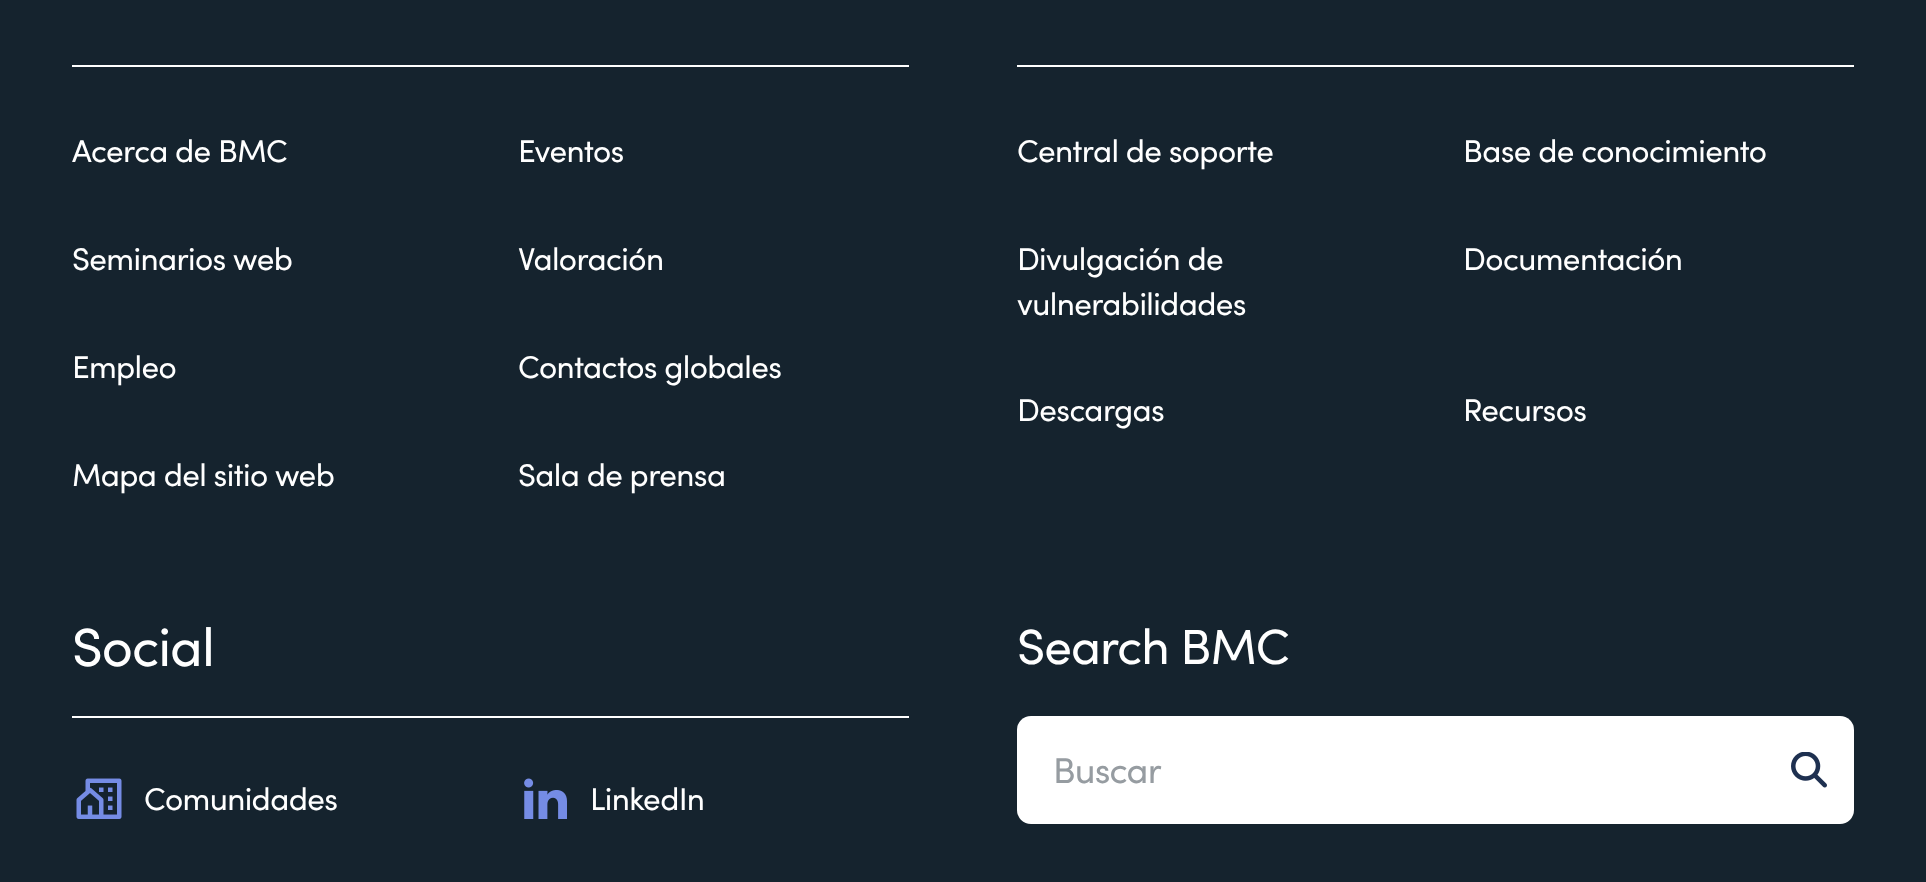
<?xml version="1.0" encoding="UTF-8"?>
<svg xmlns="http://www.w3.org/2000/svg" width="1926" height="882">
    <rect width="100%" height="100%" fill="#15232E"/>
    <rect x="72" y="65" width="837" height="2" fill="#FFFFFF"/>
    <text x="72" y="162" font-family="Sofia" font-size="31.5" letter-spacing="-0.6" fill="#FFFFFF">Acerca de BMC</text>
    <text x="518" y="162" font-family="Sofia" font-size="31.5" letter-spacing="-0.6" fill="#FFFFFF">Eventos</text>
    <text x="72" y="270" font-family="Sofia" font-size="31.5" letter-spacing="-0.6" fill="#FFFFFF">Seminarios web</text>
    <text x="518" y="270" font-family="Sofia" font-size="31.5" letter-spacing="-0.6" fill="#FFFFFF">Valoración</text>
    <text x="72" y="378" font-family="Sofia" font-size="31.5" letter-spacing="-0.6" fill="#FFFFFF">Empleo</text>
    <text x="518" y="378" font-family="Sofia" font-size="31.5" letter-spacing="-0.6" fill="#FFFFFF">Contactos globales</text>
    <text x="72" y="486" font-family="Sofia" font-size="31.5" letter-spacing="-0.6" fill="#FFFFFF">Mapa del sitio web</text>
    <text x="518" y="486" font-family="Sofia" font-size="31.5" letter-spacing="-0.6" fill="#FFFFFF">Sala de prensa</text>
    <rect x="1017" y="65" width="837" height="2" fill="#FFFFFF"/>
    <text x="1017" y="162" font-family="Sofia" font-size="31.5" letter-spacing="-0.6" fill="#FFFFFF">Central de soporte</text>
    <text x="1463" y="162" font-family="Sofia" font-size="31.5" letter-spacing="-0.6" fill="#FFFFFF">Base de conocimiento</text>
    <text font-family="Sofia" font-size="31.5" letter-spacing="-0.6" fill="#FFFFFF">
        <tspan x="1017" y="270">Divulgación de</tspan>
        <tspan x="1017" y="315">vulnerabilidades</tspan>
    </text>
    <text x="1463" y="270" font-family="Sofia" font-size="31.5" letter-spacing="-0.6" fill="#FFFFFF">Documentación</text>
    <text x="1017" y="421" font-family="Sofia" font-size="31.5" letter-spacing="-0.6" fill="#FFFFFF">Descargas</text>
    <text x="1463" y="421" font-family="Sofia" font-size="31.5" letter-spacing="-0.6" fill="#FFFFFF">Recursos</text>
    <text x="72" y="666" font-family="Sofia" font-size="54" letter-spacing="-1" fill="#FFFFFF">Social</text>
    <rect x="72" y="716" width="837" height="2" fill="#FFFFFF"/>
    <image x="76" y="778" width="46" height="41" href="img_01.png"/>
    <text x="144" y="810" font-family="Sofia" font-size="31.5" letter-spacing="-0.6" fill="#FFFFFF">Comunidades</text>
    <image x="524" y="778" width="43" height="41" href="img_02.png"/>
    <text x="590" y="810" font-family="Sofia" font-size="31.5" letter-spacing="-0.6" fill="#FFFFFF">LinkedIn</text>
    <text x="1017" y="664" font-family="Sofia" font-size="49.5" letter-spacing="-1" fill="#FFFFFF">Search BMC</text>
    <rect x="1017" y="716" width="837" height="108" rx="14" fill="#FFFFFF"/>
    <text x="1053" y="783" font-family="Sofia" font-size="36" letter-spacing="-0.75" fill="#969CA1">Buscar</text>
    <image x="1791" y="752" width="36" height="36" href="img_03.png"/>
</svg>
